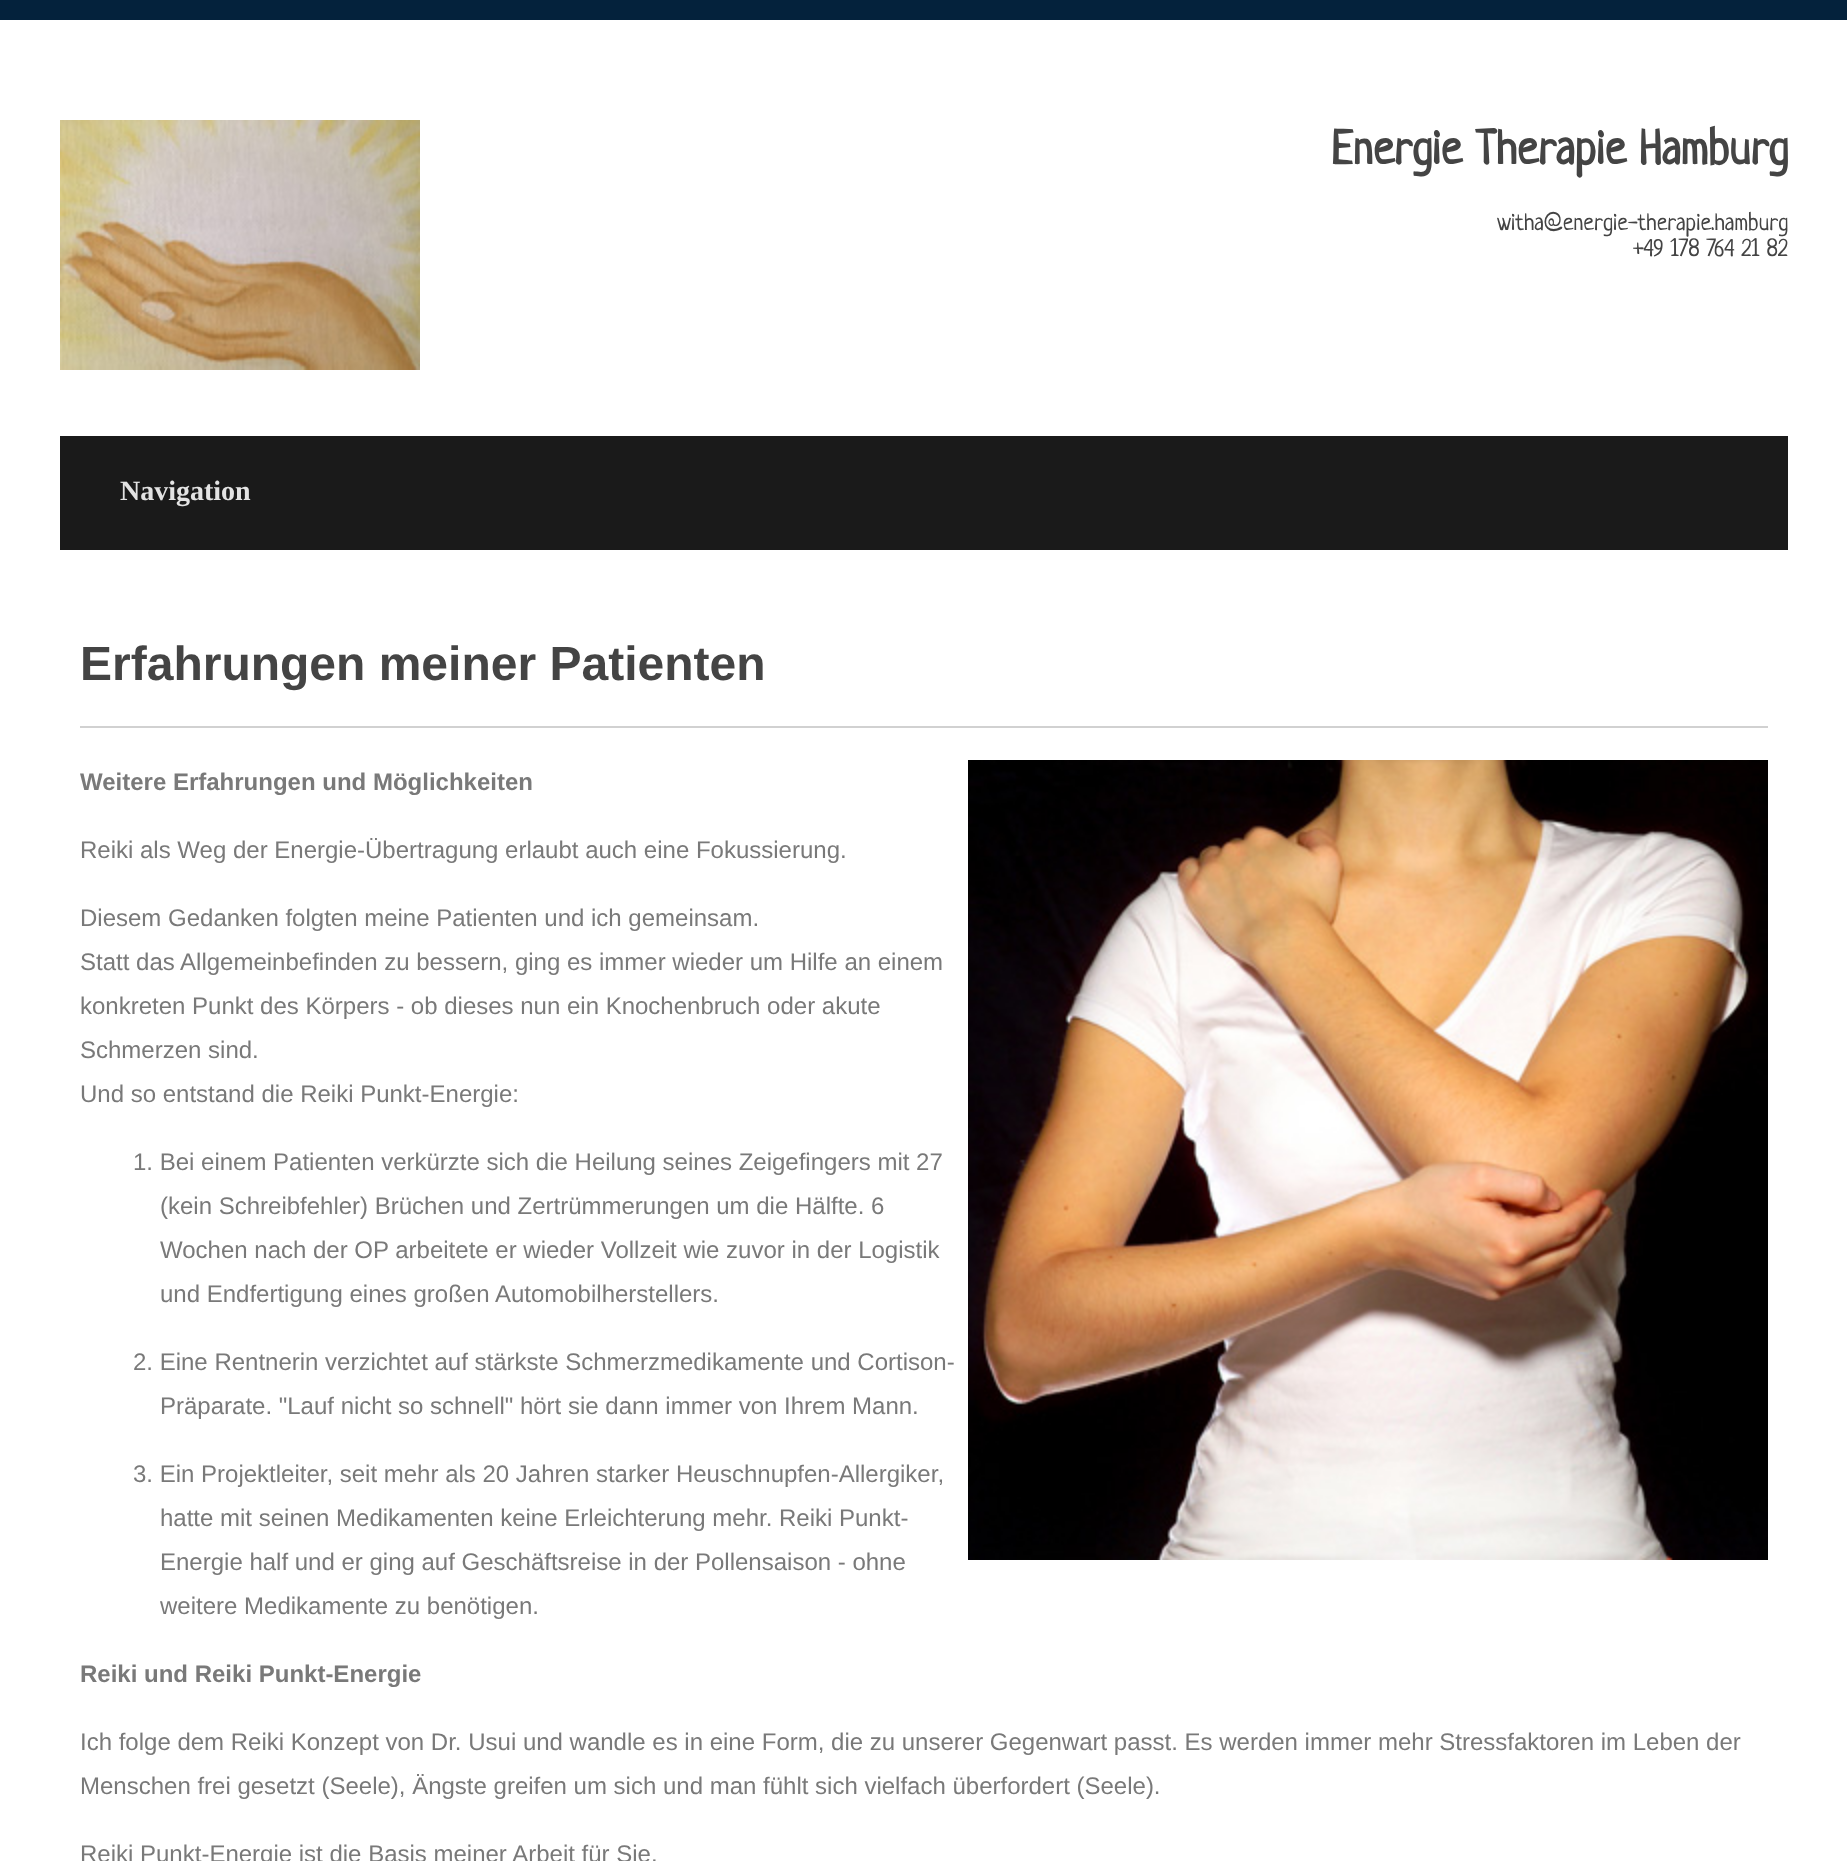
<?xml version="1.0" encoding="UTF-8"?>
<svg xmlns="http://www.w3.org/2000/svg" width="1847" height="1861">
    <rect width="100%" height="100%" fill="#04223C"/>
    <rect x="0" y="20" width="1847" height="1841" fill="#FFFFFF"/>
    <image x="60" y="120" width="360" height="250" href="img_01.png"/>
    <text x="1331" y="164" font-family="Neucha" font-size="48" font-weight="700" fill="#444444">Energie Therapie Hamburg</text>
    <text x="1497" y="230" font-family="Neucha" font-size="24" fill="#444444">witha@energie-therapie.hamburg</text>
    <text x="1633" y="256" font-family="Neucha" font-size="24" fill="#444444">+49 178 764 21 82</text>
    <rect x="60" y="436" width="1728" height="114" fill="#1A1A1A"/>
    <text x="120" y="500" font-family="Liberation Serif" font-size="28" font-weight="700" fill="#E3E3E3">Navigation</text>
    <rect x="80" y="726" width="1688" height="2" fill="#D1D1D1"/>
    <text x="80" y="680" font-family="Liberation Sans" font-size="48" font-weight="700" fill="#444444">Erfahrungen meiner Patienten</text>
    <image x="968" y="760" width="800" height="800" href="img_02.png"/>
    <text x="80" y="790" font-family="Liberation Sans" font-size="24" font-weight="700" fill="#797979">Weitere Erfahrungen und Möglichkeiten</text>
    <text x="80" y="858" font-family="Liberation Sans" font-size="24" fill="#797979">Reiki als Weg der Energie-Übertragung erlaubt auch eine Fokussierung.</text>
    <text font-family="Liberation Sans" font-size="24" fill="#797979">
        <tspan x="80" y="926">Diesem Gedanken folgten meine Patienten und ich gemeinsam.</tspan>
        <tspan x="80" y="970">Statt das Allgemeinbefinden zu bessern, ging es immer wieder um Hilfe an einem</tspan>
        <tspan x="80" y="1014">konkreten Punkt des Körpers - ob dieses nun ein Knochenbruch oder akute</tspan>
        <tspan x="80" y="1058">Schmerzen sind.</tspan>
        <tspan x="80" y="1102">Und so entstand die Reiki Punkt-Energie:</tspan>
    </text>
    <text x="133" y="1170" font-family="Liberation Sans" font-size="24" fill="#797979">1. Bei einem Patienten verkürzte sich die Heilung seines Zeigefingers mit 27</text>
    <text font-family="Liberation Sans" font-size="24" fill="#797979">
        <tspan x="160" y="1214">(kein Schreibfehler) Brüchen und Zertrümmerungen um die Hälfte. 6</tspan>
        <tspan x="160" y="1258">Wochen nach der OP arbeitete er wieder Vollzeit wie zuvor in der Logistik</tspan>
        <tspan x="160" y="1302">und Endfertigung eines großen Automobilherstellers.</tspan>
    </text>
    <text x="133" y="1370" font-family="Liberation Sans" font-size="24" fill="#797979">2. Eine Rentnerin verzichtet auf stärkste Schmerzmedikamente und Cortison-</text>
    <text x="160" y="1414" font-family="Liberation Sans" font-size="24" fill="#797979">Präparate. "Lauf nicht so schnell" hört sie dann immer von Ihrem Mann.</text>
    <text x="133" y="1482" font-family="Liberation Sans" font-size="24" fill="#797979">3. Ein Projektleiter, seit mehr als 20 Jahren starker Heuschnupfen-Allergiker,</text>
    <text font-family="Liberation Sans" font-size="24" fill="#797979">
        <tspan x="160" y="1526">hatte mit seinen Medikamenten keine Erleichterung mehr. Reiki Punkt-</tspan>
        <tspan x="160" y="1570">Energie half und er ging auf Geschäftsreise in der Pollensaison - ohne</tspan>
        <tspan x="160" y="1614">weitere Medikamente zu benötigen.</tspan>
    </text>
    <text x="80" y="1682" font-family="Liberation Sans" font-size="24" font-weight="700" fill="#797979">Reiki und Reiki Punkt-Energie</text>
    <text font-family="Liberation Sans" font-size="24" fill="#797979">
        <tspan x="80" y="1750">Ich folge dem Reiki Konzept von Dr. Usui und wandle es in eine Form, die zu unserer Gegenwart passt. Es werden immer mehr Stressfaktoren im Leben der</tspan>
        <tspan x="80" y="1794">Menschen frei gesetzt (Seele), Ängste greifen um sich und man fühlt sich vielfach überfordert (Seele).</tspan>
    </text>
    <text x="80" y="1862" font-family="Liberation Sans" font-size="24" fill="#797979">Reiki Punkt-Energie ist die Basis meiner Arbeit für Sie.</text>
</svg>
